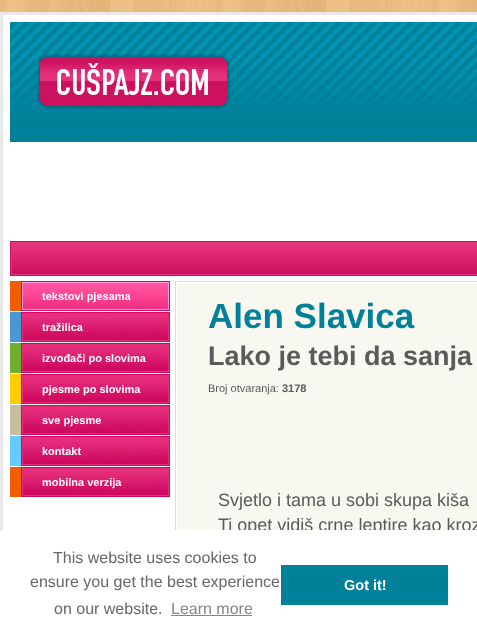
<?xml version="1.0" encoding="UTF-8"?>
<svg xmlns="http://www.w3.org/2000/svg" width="477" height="640">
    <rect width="100%" height="100%" fill="#FFFFFF"/>
    <image x="0" y="0" width="477" height="12" href="img_01.png"/>
    <rect x="1.5" y="13.5" width="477" height="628" fill="none" stroke="#E9E9E9" stroke-width="3"/>
    <image x="10" y="22" width="467" height="120" href="img_02.png"/>
    <image x="36" y="53" width="195" height="57" href="img_03.png"/>
    <image x="10" y="241" width="467" height="35" href="img_04.png"/>
    <rect x="10" y="281" width="11" height="30" fill="#F35D02"/>
    <image x="21" y="281" width="149" height="30" href="img_05.png"/>
    <text x="42" y="300" font-family="Liberation Sans" font-size="11" font-weight="700" fill="#FFFFFF">tekstovi pjesama</text>
    <rect x="10" y="312" width="11" height="30" fill="#4899D2"/>
    <image x="21" y="312" width="149" height="30" href="img_06.png"/>
    <text x="42" y="331" font-family="Liberation Sans" font-size="11" font-weight="700" fill="#FFFFFF">tražilica</text>
    <rect x="10" y="343" width="11" height="30" fill="#70AF2D"/>
    <image x="21" y="343" width="149" height="30" href="img_06.png"/>
    <text x="42" y="362" font-family="Liberation Sans" font-size="11" font-weight="700" fill="#FFFFFF">izvođači po slovima</text>
    <rect x="10" y="374" width="11" height="30" fill="#FFCC00"/>
    <image x="21" y="374" width="149" height="30" href="img_06.png"/>
    <text x="42" y="393" font-family="Liberation Sans" font-size="11" font-weight="700" fill="#FFFFFF">pjesme po slovima</text>
    <rect x="10" y="405" width="11" height="30" fill="#C8BD9F"/>
    <image x="21" y="405" width="149" height="30" href="img_06.png"/>
    <text x="42" y="424" font-family="Liberation Sans" font-size="11" font-weight="700" fill="#FFFFFF">sve pjesme</text>
    <rect x="10" y="436" width="11" height="30" fill="#66CCFF"/>
    <image x="21" y="436" width="149" height="30" href="img_06.png"/>
    <text x="42" y="455" font-family="Liberation Sans" font-size="11" font-weight="700" fill="#FFFFFF">kontakt</text>
    <rect x="10" y="467" width="11" height="30" fill="#F35D02"/>
    <image x="21" y="467" width="149" height="30" href="img_06.png"/>
    <text x="42" y="486" font-family="Liberation Sans" font-size="11" font-weight="700" fill="#FFFFFF">mobilna verzija</text>
    <rect x="175.5" y="281.5" width="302" height="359" fill="none" stroke="#DFDEC9"/>
    <rect x="177" y="283" width="300" height="247" fill="#F8F8F1"/>
    <text x="208" y="328" font-family="Liberation Sans" font-size="35" font-weight="700" fill="#008099">Alen Slavica</text>
    <text x="208" y="365" font-family="Liberation Sans" font-size="27" font-weight="700" fill="#5A5A5A">Lako je tebi da sanja</text>
    <text x="208" y="392" font-family="Liberation Sans" font-size="11" fill="#5A5A5A">Broj otvaranja:</text>
    <text x="282" y="392" font-family="Liberation Sans" font-size="11" font-weight="700" fill="#5A5A5A">3178</text>
    <text font-family="Liberation Sans" font-size="18" fill="#5A5A5A">
        <tspan x="218" y="506">Svjetlo i tama u sobi skupa kiša</tspan>
        <tspan x="218" y="531">Ti opet vidiš crne leptire kao kroz</tspan>
    </text>
    <rect x="0" y="530" width="477" height="110" fill="#FFFFFF"/>
    <text x="53" y="563" font-family="Liberation Sans" font-size="16" fill="#666666">This website uses cookies to</text>
    <text x="30" y="587" font-family="Liberation Sans" font-size="16" fill="#666666">ensure you get the best experience</text>
    <text x="54" y="614" font-family="Liberation Sans" font-size="16" fill="#666666">on our website.</text>
    <text x="171" y="614" font-family="Liberation Sans" font-size="16" fill="#858585">Learn more</text>
    <rect x="171" y="615" width="81" height="1" fill="#858585"/>
    <rect x="281" y="565" width="167" height="40" fill="#008099"/>
    <text x="344" y="590" font-family="Liberation Sans" font-size="14.5" font-weight="700" fill="#FFFFFF">Got it!</text>
</svg>
